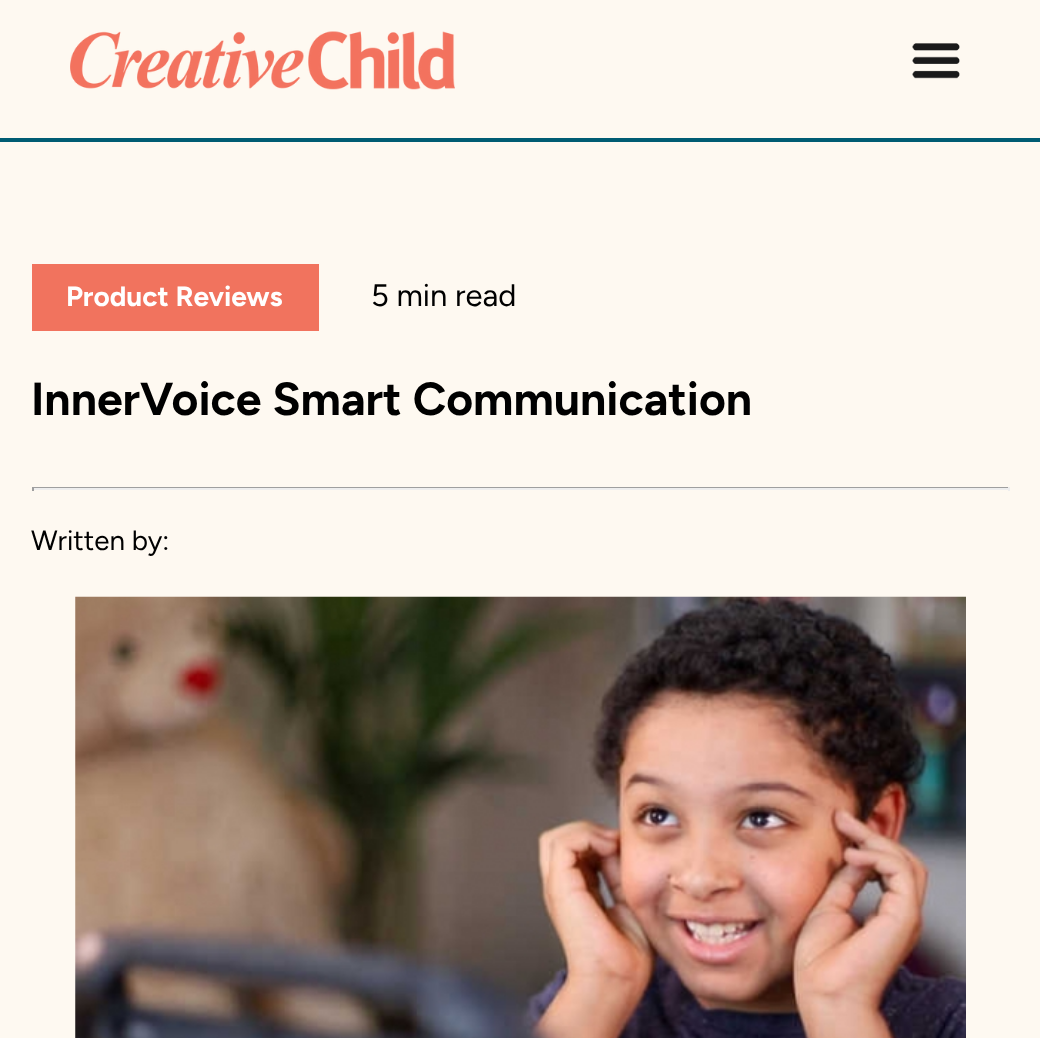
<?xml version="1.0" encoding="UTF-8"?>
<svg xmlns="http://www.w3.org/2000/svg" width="1040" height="1038">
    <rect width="100%" height="100%" fill="#FEF9F1"/>
    <rect x="0" y="138" width="1040" height="4" fill="#005C73"/>
    <image x="70" y="31" width="385" height="59" href="img_01.png"/>
    <image x="912" y="43" width="48" height="36" href="img_02.png"/>
    <rect x="32" y="264" width="287" height="67" fill="#F1735E"/>
    <text x="66" y="306" font-family="Figtree" font-size="28" font-weight="700" fill="#FFFFFF">Product Reviews</text>
    <text x="371" y="306" font-family="Figtree" font-size="31" fill="#000000">5 min read</text>
    <text x="31" y="415" font-family="Figtree" font-size="46.25" font-weight="700" fill="#000000">InnerVoice Smart Communication</text>
    <rect x="32" y="487" width="978" height="1" fill="#9F9F9F"/>
    <rect x="1008" y="487" width="2" height="4" fill="#EEEEEE"/>
    <rect x="32" y="488" width="978" height="2" fill="#EEEEEE"/>
    <rect x="32" y="487" width="2" height="4" fill="#9F9F9F"/>
    <text x="31" y="550" font-family="Figtree" font-size="27.75" fill="#000000">Written by:</text>
    <image x="75" y="596" width="891" height="442" href="img_03.png"/>
</svg>
